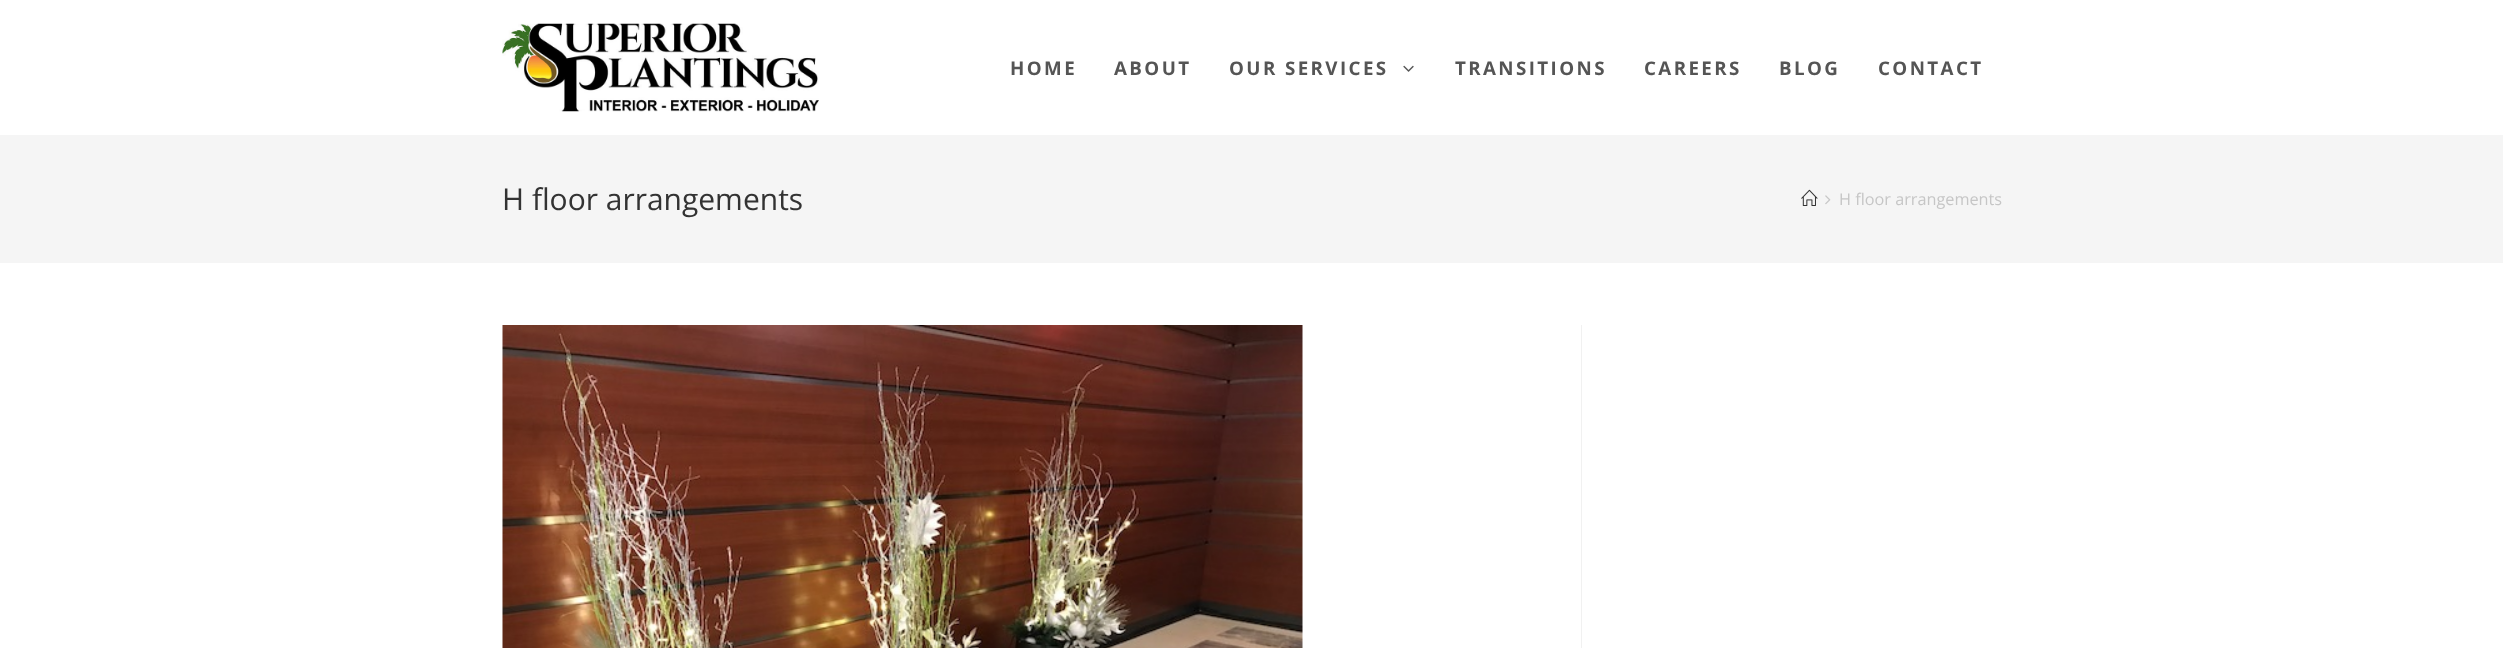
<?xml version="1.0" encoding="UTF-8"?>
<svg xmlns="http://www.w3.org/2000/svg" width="2503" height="648">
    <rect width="100%" height="100%" fill="#FFFFFF"/>
    <image x="502" y="23" width="317" height="89" href="img_01.png"/>
    <text x="1010" y="75" font-family="Open Sans" font-size="18.75" font-weight="700" letter-spacing="2.4" fill="#555555">HOME</text>
    <text x="1114" y="75" font-family="Open Sans" font-size="18.75" font-weight="700" letter-spacing="2.4" fill="#555555">ABOUT</text>
    <text x="1229" y="75" font-family="Open Sans" font-size="18.75" font-weight="700" letter-spacing="2.4" fill="#555555">OUR SERVICES</text>
    <image x="1403" y="65" width="11" height="7" href="img_02.png"/>
    <text x="1455" y="75" font-family="Open Sans" font-size="18.75" font-weight="700" letter-spacing="2.4" fill="#555555">TRANSITIONS</text>
    <text x="1644" y="75" font-family="Open Sans" font-size="18.75" font-weight="700" letter-spacing="2.4" fill="#555555">CAREERS</text>
    <text x="1779" y="75" font-family="Open Sans" font-size="18.75" font-weight="700" letter-spacing="2.4" fill="#555555">BLOG</text>
    <text x="1878" y="75" font-family="Open Sans" font-size="18.75" font-weight="700" letter-spacing="2.4" fill="#555555">CONTACT</text>
    <rect x="0" y="135" width="2503" height="128" fill="#F5F5F5"/>
    <text x="502" y="210" font-family="Open Sans" font-size="30" fill="#333333">H floor arrangements</text>
    <image x="1801" y="189" width="17" height="17" href="img_03.png"/>
    <image x="1825" y="195" width="6" height="10" href="img_04.png"/>
    <text x="1839" y="205" font-family="Open Sans" font-size="16.25" fill="#C6C6C6">H floor arrangements</text>
    <rect x="1581" y="325" width="1" height="323" fill="#F1F1F1"/>
    <image x="502" y="325" width="801" height="323" href="img_05.png"/>
</svg>
